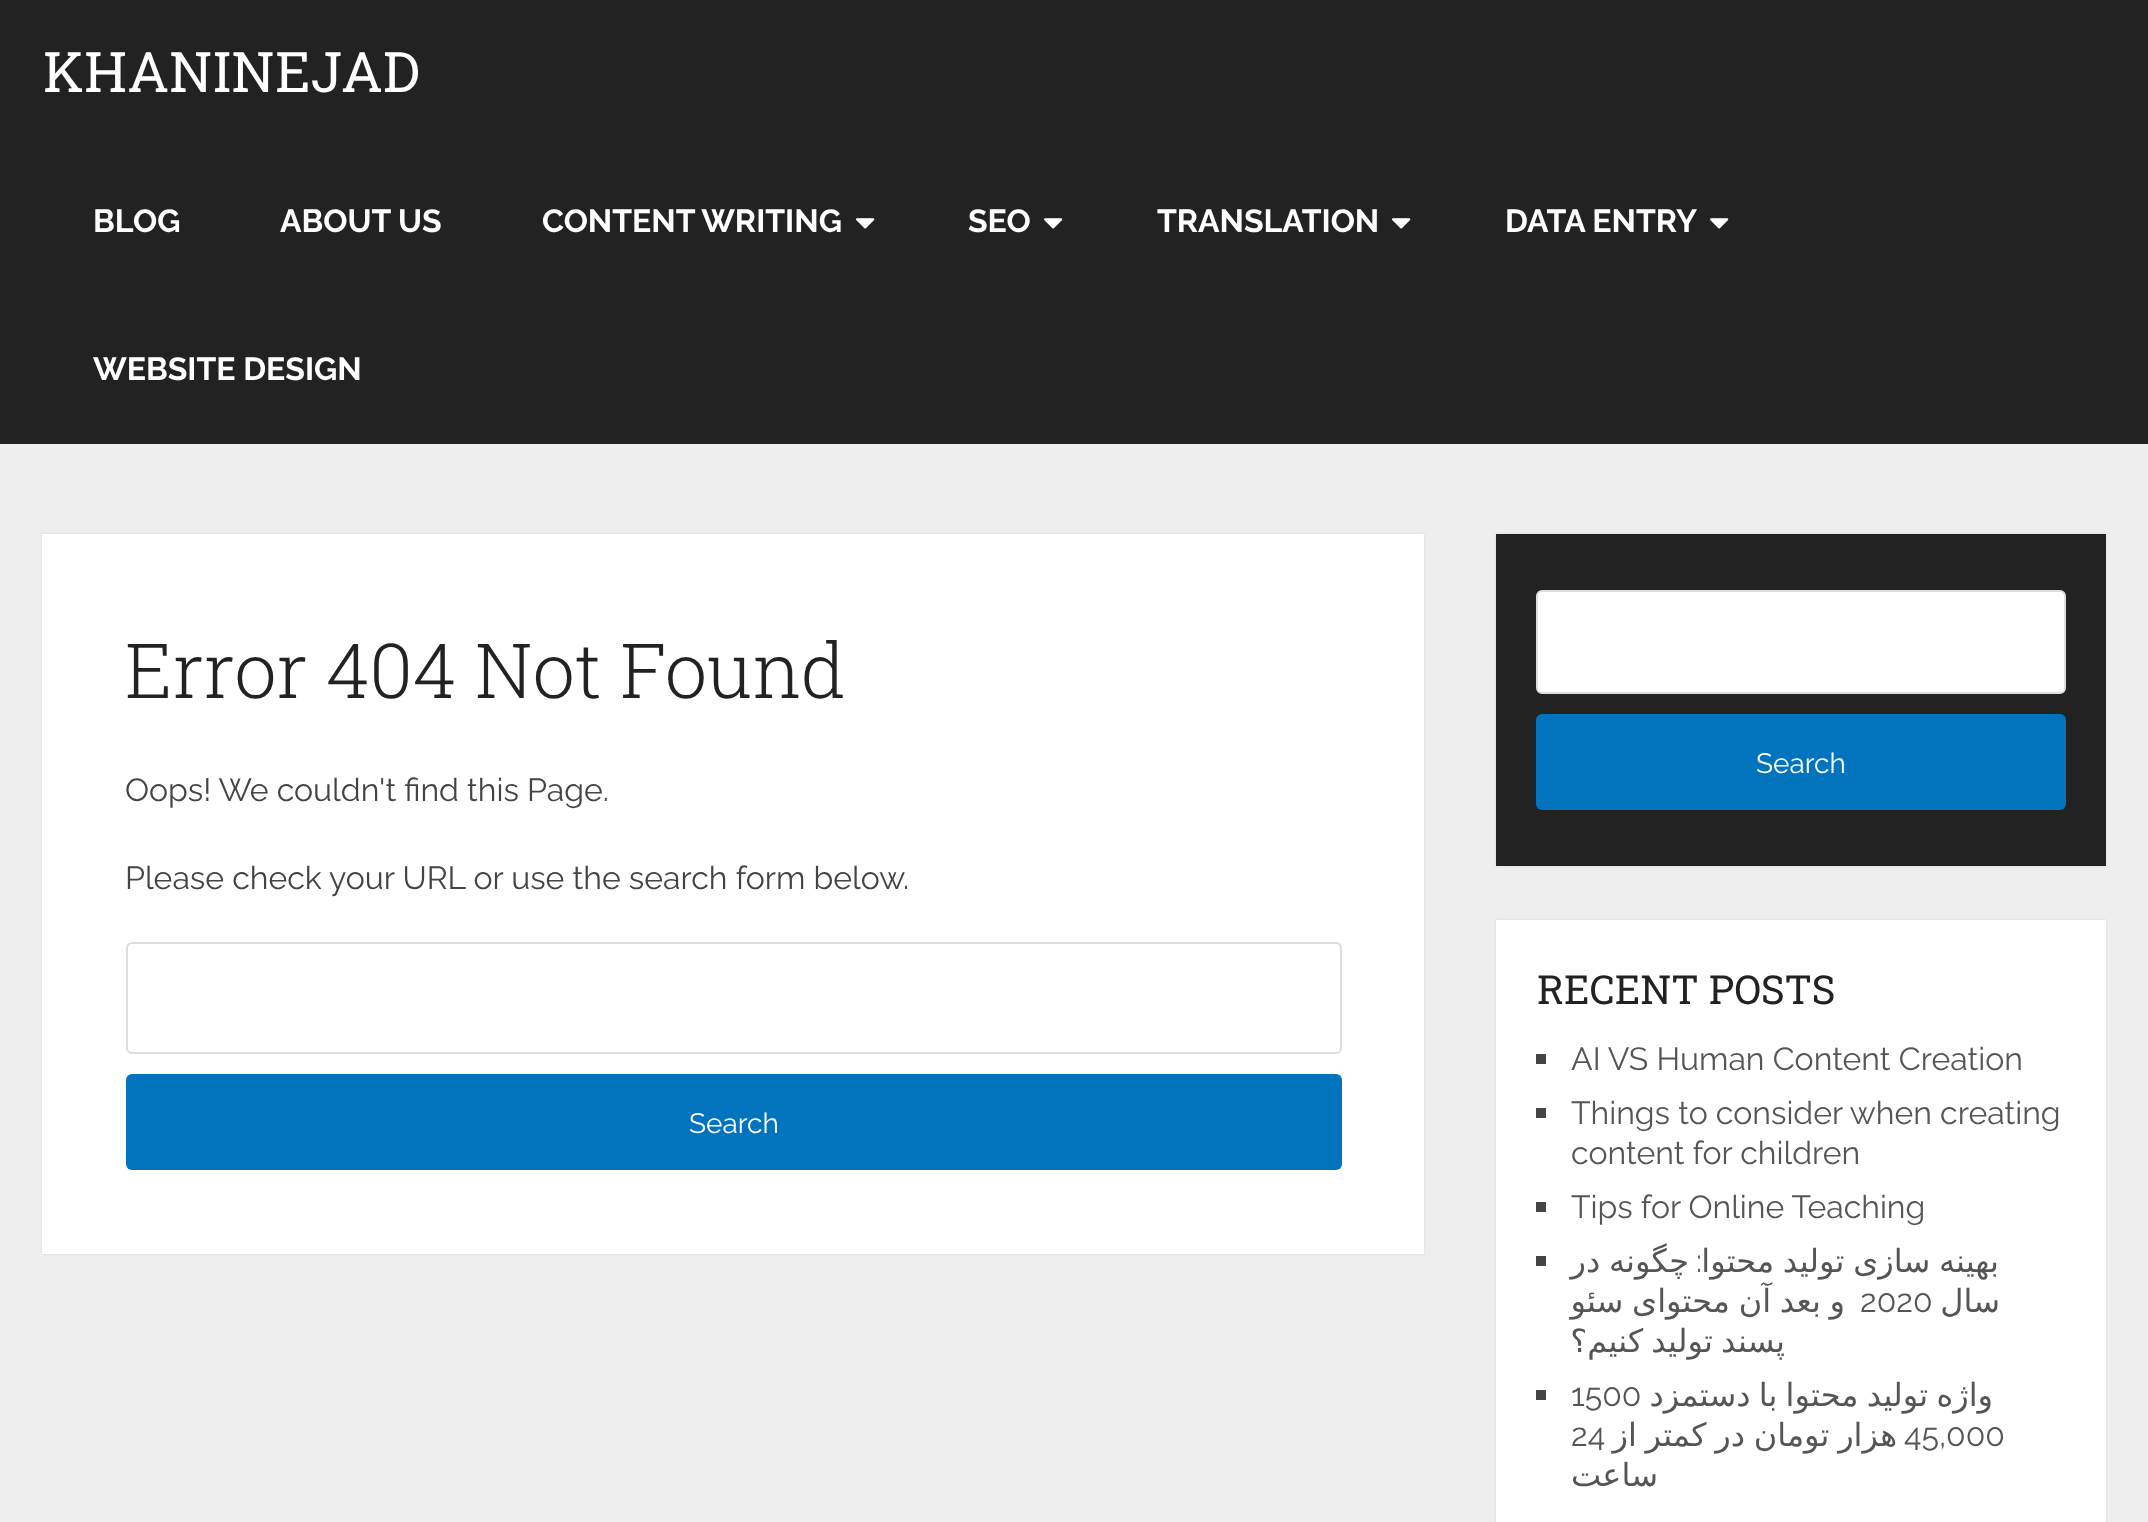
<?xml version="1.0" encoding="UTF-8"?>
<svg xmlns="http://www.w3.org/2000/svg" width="2148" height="1522">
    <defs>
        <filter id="blur1" x="-50%" y="-200%" width="200%" height="500%"><feGaussianBlur stdDeviation="1"/></filter>
    </defs>
    <rect width="100%" height="100%" fill="#EEEEEE"/>
    <rect x="0" y="0" width="2148" height="444" fill="#222222"/>
    <text x="43" y="92" font-family="Roboto Slab" font-size="56" fill="#FFFFFF">KHANINEJAD</text>
    <text x="93" y="232" font-family="Raleway" font-size="32" font-weight="700" fill="#FFFFFF">BLOG</text>
    <text x="280" y="232" font-family="Raleway" font-size="32" font-weight="700" fill="#FFFFFF">ABOUT US</text>
    <text x="542" y="232" font-family="Raleway" font-size="32" font-weight="700" fill="#FFFFFF">CONTENT WRITING</text>
    <image x="856" y="218" width="19" height="11" href="img_01.png"/>
    <text x="968" y="232" font-family="Raleway" font-size="32" font-weight="700" fill="#FFFFFF">SEO</text>
    <image x="1044" y="218" width="19" height="11" href="img_01.png"/>
    <text x="1157" y="232" font-family="Raleway" font-size="32" font-weight="700" fill="#FFFFFF">TRANSLATION</text>
    <image x="1392" y="218" width="19" height="11" href="img_01.png"/>
    <text x="1505" y="232" font-family="Raleway" font-size="32" font-weight="700" fill="#FFFFFF">DATA ENTRY</text>
    <image x="1710" y="218" width="19" height="11" href="img_01.png"/>
    <text x="93" y="380" font-family="Raleway" font-size="32" font-weight="700" fill="#FFFFFF">WEBSITE DESIGN</text>
    <rect x="42" y="534" width="1382" height="720" fill="#323232" fill-opacity="0.1" filter="url(#blur1)"/>
    <rect x="42" y="534" width="1382" height="720" fill="#FFFFFF"/>
    <text x="125" y="698" font-family="Roboto Slab" font-size="76" font-weight="300" fill="#222222">Error 404 Not Found</text>
    <text x="125" y="801" font-family="Raleway" font-size="32" fill="#444444">Oops! We couldn't find this Page.</text>
    <text x="125" y="889" font-family="Raleway" font-size="32" fill="#444444">Please check your URL or use the search form below.</text>
    <rect x="127" y="943" width="1214" height="110" rx="5" fill="none" stroke="#DDDDDD" stroke-width="2"/>
    <rect x="126" y="1074" width="1216" height="96" rx="6" fill="#0274BE"/>
    <text x="689" y="1133" font-family="Raleway" font-size="28" fill="#FFFFFF">Search</text>
    <rect x="1496" y="534" width="610" height="332" fill="#323232" fill-opacity="0.1" filter="url(#blur1)"/>
    <rect x="1496" y="534" width="610" height="332" fill="#222222"/>
    <rect x="1537" y="591" width="528" height="102" rx="5" fill="#FFFFFF" stroke="#DDDDDD" stroke-width="2"/>
    <rect x="1536" y="714" width="530" height="96" rx="6" fill="#0274BE"/>
    <text x="1756" y="773" font-family="Raleway" font-size="28" fill="#FFFFFF">Search</text>
    <rect x="1496" y="920" width="610" height="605" fill="#323232" fill-opacity="0.1" filter="url(#blur1)"/>
    <rect x="1496" y="920" width="610" height="602" fill="#FFFFFF"/>
    <text x="1537" y="1004" font-family="Roboto Slab" font-size="40" fill="#222222">RECENT POSTS</text>
    <rect x="1536" y="1054" width="10" height="10" fill="#444444"/>
    <text x="1571" y="1070" font-family="Raleway" font-size="32" fill="#555555">AI VS Human Content Creation</text>
    <rect x="1536" y="1108" width="10" height="10" fill="#444444"/>
    <text font-family="Raleway" font-size="32" fill="#555555">
        <tspan x="1571" y="1124">Things to consider when creating</tspan>
        <tspan x="1571" y="1164">content for children</tspan>
    </text>
    <rect x="1536" y="1202" width="10" height="10" fill="#444444"/>
    <text x="1571" y="1218" font-family="Raleway" font-size="32" fill="#555555">Tips for Online Teaching</text>
    <rect x="1536" y="1256" width="10" height="10" fill="#444444"/>
    <text x="1689" y="1272" word-spacing="-1.5" font-family="DejaVu Sans" font-size="32" direction="rtl" fill="#555555">چگونه در</text>
    <text x="1702" y="1272" font-family="Raleway" font-size="32" direction="rtl" fill="#555555">:</text>
    <text x="1999" y="1272" word-spacing="-1.5" font-family="DejaVu Sans" font-size="32" direction="rtl" fill="#555555">بهینه سازی تولید محتوا</text>
    <text x="1845" y="1312" word-spacing="-1.5" font-family="DejaVu Sans" font-size="32" direction="rtl" fill="#555555">و بعد آن محتوای سئو</text>
    <text x="1860" y="1312" font-family="Raleway" font-size="32" fill="#555555">2020</text>
    <text x="2000" y="1312" font-family="DejaVu Sans" font-size="32" direction="rtl" fill="#555555">سال</text>
    <text x="1785" y="1352" word-spacing="-2" font-family="DejaVu Sans" font-size="32" direction="rtl" fill="#555555">پسند تولید کنیم؟</text>
    <rect x="1536" y="1390" width="10" height="10" fill="#444444"/>
    <text x="1571" y="1406" font-family="Raleway" font-size="32" fill="#555555">1500</text>
    <text x="1993" y="1406" word-spacing="-2" font-family="DejaVu Sans" font-size="32" direction="rtl" fill="#555555">واژه تولید محتوا با دستمزد</text>
    <text x="1571" y="1446" font-family="Raleway" font-size="32" fill="#555555">24</text>
    <text x="1897" y="1446" word-spacing="-1.5" font-family="DejaVu Sans" font-size="32" direction="rtl" fill="#555555">هزار تومان در کمتر از</text>
    <text x="1904" y="1446" font-family="Raleway" font-size="32" fill="#555555">45,000</text>
    <text x="1658" y="1486" font-family="DejaVu Sans" font-size="32" direction="rtl" fill="#555555">ساعت</text>
</svg>
